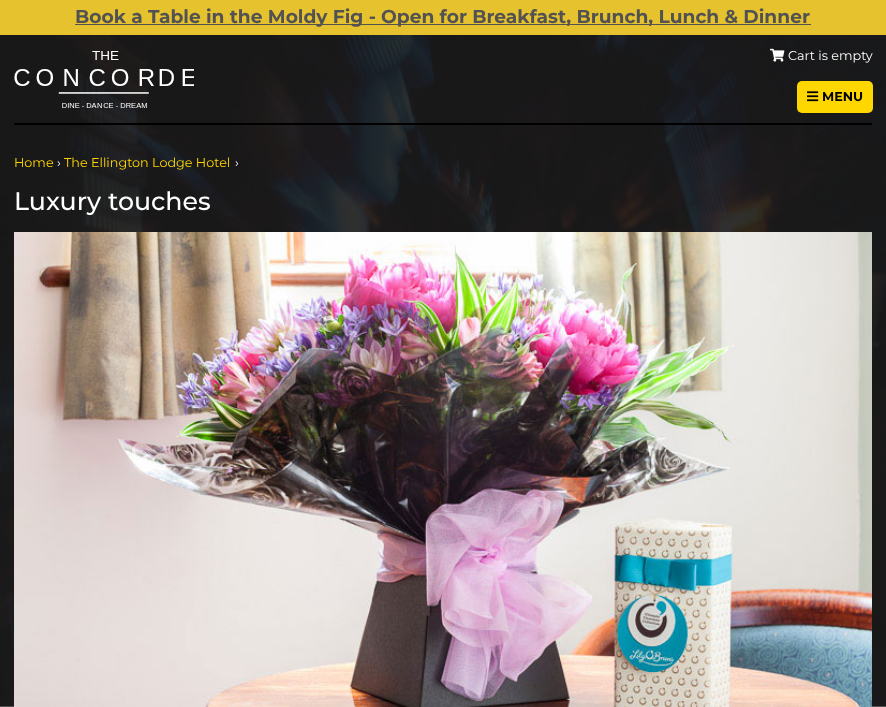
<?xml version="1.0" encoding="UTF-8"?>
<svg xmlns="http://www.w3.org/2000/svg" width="886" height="707">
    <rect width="100%" height="100%" fill="#FFFFFF"/>
    <image x="0" y="35" width="886" height="672" href="img_01.png"/>
    <rect x="0" y="0" width="886" height="35" fill="#E6C22E"/>
    <rect x="75" y="24" width="736" height="1" fill="#525252"/>
    <text x="75" y="23" font-family="Montserrat" font-size="18.65" font-weight="700" fill="#525252">Book a Table in the Moldy Fig - Open for Breakfast, Brunch, Lunch &amp; Dinner</text>
    <rect x="14" y="123" width="858" height="2" fill="#000000"/>
    <image x="14" y="51" width="180" height="57" href="img_02.png"/>
    <image x="770" y="48" width="15" height="14" href="img_03.png"/>
    <text x="788" y="60" font-family="Montserrat" font-size="12.75" fill="#FFFFFF">Cart is empty</text>
    <rect x="797" y="81" width="76" height="32" rx="5" fill="#FFD700"/>
    <image x="807" y="91" width="12" height="11" href="img_04.png"/>
    <text x="822" y="101" font-family="Montserrat" font-size="12.75" font-weight="700" fill="#000000">MENU</text>
    <text x="14" y="167" font-family="Montserrat" font-size="12.75" fill="#FFD700">Home</text>
    <text x="57" y="167" font-family="Montserrat" font-size="12.75" fill="#FFFFFF">›</text>
    <text x="64" y="167" font-family="Montserrat" font-size="12.75" fill="#FFD700">The Ellington Lodge Hotel</text>
    <text x="235" y="167" font-family="Montserrat" font-size="12.75" fill="#FFFFFF">›</text>
    <text x="14" y="210" font-family="Montserrat" font-size="25.25" font-weight="500" fill="#FFFFFF">Luxury touches</text>
    <image x="14" y="232" width="858" height="475" href="img_05.png"/>
</svg>
